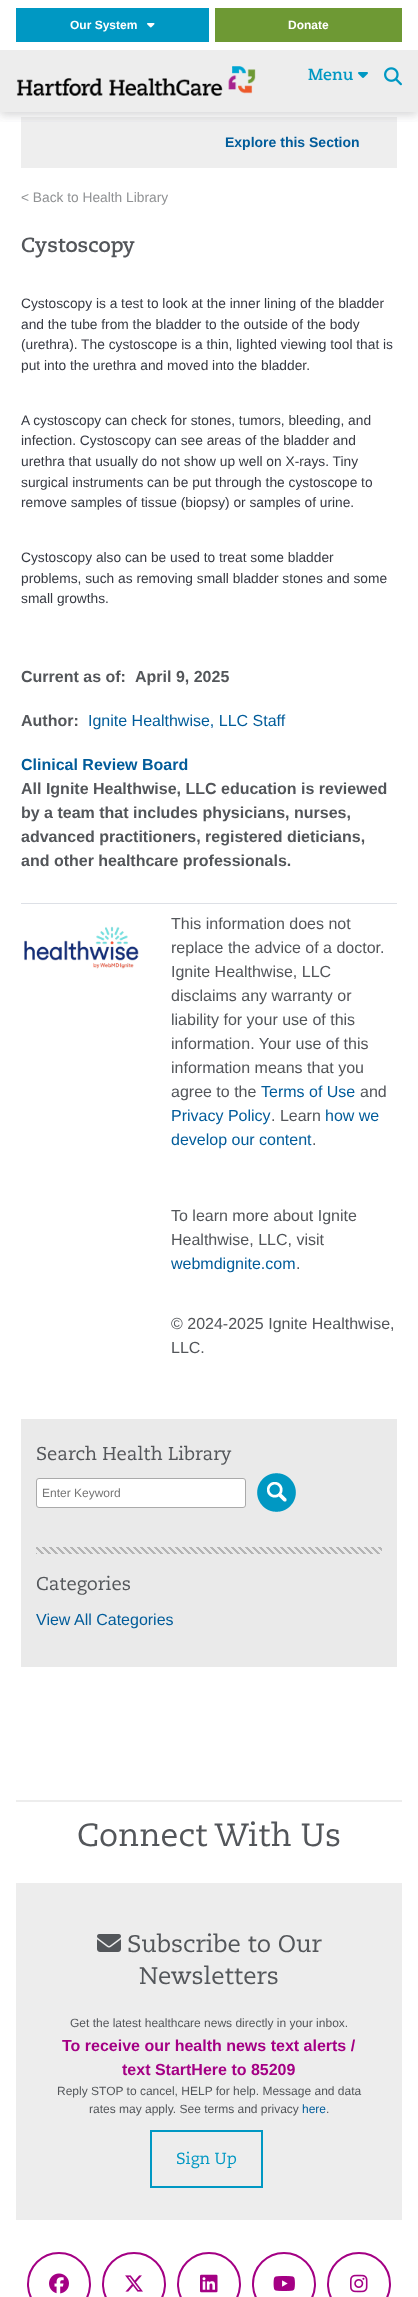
<?xml version="1.0" encoding="UTF-8"?>
<svg xmlns="http://www.w3.org/2000/svg" width="418" height="2297">
    <defs>
        <clipPath id="clip1"><rect x="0" y="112" width="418" height="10"/></clipPath>
        <filter id="blur1" x="-50%" y="-200%" width="200%" height="500%"><feGaussianBlur stdDeviation="5"/></filter>
    </defs>
    <rect width="100%" height="100%" fill="#FFFFFF"/>
    <rect x="21" y="117" width="376" height="51" fill="#EEEEEE"/>
    <g clip-path="url(#clip1)">
        <rect x="0" y="3" width="418" height="112" fill="#53565A" fill-opacity="0.25" filter="url(#blur1)"/>
    </g>
    <rect x="16" y="8" width="193" height="34" fill="#0098C3"/>
    <text x="70" y="29" font-family="Liberation Sans" font-size="12" font-weight="700" fill="#FFFFFF">Our System</text>
    <image x="147" y="23" width="8" height="5" href="img_01.png"/>
    <rect x="215" y="8" width="187" height="34" fill="#6E9934"/>
    <text x="288" y="29" font-family="Liberation Sans" font-size="12" font-weight="700" fill="#FFFFFF">Donate</text>
    <rect x="0" y="50" width="418" height="62" fill="#EDEDED"/>
    <image x="16" y="66" width="240" height="30" href="img_02.png"/>
    <text x="308" y="80" font-family="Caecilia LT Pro" font-size="16" font-weight="700" fill="#0098C3">Menu</text>
    <image x="358" y="72" width="10" height="6" href="img_03.png"/>
    <image x="384" y="67" width="18" height="19" href="img_04.png"/>
    <text x="225" y="147" font-family="Liberation Sans" font-size="14" font-weight="700" fill="#015C9A">Explore this Section</text>
    <text x="21" y="202" font-family="Liberation Sans" font-size="13.75" fill="#909294">&lt; Back to Health Library</text>
    <text x="21" y="252" font-family="Caecilia LT Pro" font-size="20.5" font-weight="700" fill="#53565A">Cystoscopy</text>
    <text font-family="Liberation Sans" font-size="13.75" fill="#363942">
        <tspan x="21" y="308">Cystoscopy is a test to look at the inner lining of the bladder</tspan>
        <tspan x="21" y="329">and the tube from the bladder to the outside of the body</tspan>
        <tspan x="21" y="349">(urethra). The cystoscope is a thin, lighted viewing tool that is</tspan>
        <tspan x="21" y="370">put into the urethra and moved into the bladder.</tspan>
    </text>
    <text font-family="Liberation Sans" font-size="13.75" fill="#363942">
        <tspan x="21" y="425">A cystoscopy can check for stones, tumors, bleeding, and</tspan>
        <tspan x="21" y="445">infection. Cystoscopy can see areas of the bladder and</tspan>
        <tspan x="21" y="466">urethra that usually do not show up well on X-rays. Tiny</tspan>
        <tspan x="21" y="487">surgical instruments can be put through the cystoscope to</tspan>
        <tspan x="21" y="507">remove samples of tissue (biopsy) or samples of urine.</tspan>
    </text>
    <text font-family="Liberation Sans" font-size="13.75" fill="#363942">
        <tspan x="21" y="562">Cystoscopy also can be used to treat some bladder</tspan>
        <tspan x="21" y="583">problems, such as removing small bladder stones and some</tspan>
        <tspan x="21" y="603">small growths.</tspan>
    </text>
    <text x="21" y="682" font-family="Liberation Sans" font-size="16" font-weight="700" fill="#53565A">Current as of:</text>
    <text x="135" y="682" font-family="Liberation Sans" font-size="16" font-weight="700" fill="#53565A">April 9, 2025</text>
    <text x="21" y="726" font-family="Liberation Sans" font-size="16" font-weight="700" fill="#53565A">Author:</text>
    <text x="88" y="726" font-family="Liberation Sans" font-size="16" fill="#015C9A">Ignite Healthwise, LLC Staff</text>
    <text x="21" y="770" font-family="Liberation Sans" font-size="16" font-weight="700" fill="#015C9A">Clinical Review Board</text>
    <text font-family="Liberation Sans" font-size="16" font-weight="700" fill="#53565A">
        <tspan x="21" y="794">All Ignite Healthwise, LLC education is reviewed</tspan>
        <tspan x="21" y="818">by a team that includes physicians, nurses,</tspan>
        <tspan x="21" y="842">advanced practitioners, registered dieticians,</tspan>
        <tspan x="21" y="866">and other healthcare professionals.</tspan>
    </text>
    <image x="24" y="926" width="115" height="43" href="img_05.png"/>
    <rect x="21" y="903" width="376" height="1" fill="#DDE0E6"/>
    <text font-family="Liberation Sans" font-size="16" fill="#53565A">
        <tspan x="171" y="929">This information does not</tspan>
        <tspan x="171" y="953">replace the advice of a doctor.</tspan>
        <tspan x="171" y="977">Ignite Healthwise, LLC</tspan>
        <tspan x="171" y="1001">disclaims any warranty or</tspan>
        <tspan x="171" y="1025">liability for your use of this</tspan>
        <tspan x="171" y="1049">information. Your use of this</tspan>
        <tspan x="171" y="1073">information means that you</tspan>
        <tspan x="171" y="1097">agree to the</tspan>
    </text>
    <text x="261" y="1097" font-family="Liberation Sans" font-size="16" fill="#015C9A">Terms of Use</text>
    <text x="360" y="1097" font-family="Liberation Sans" font-size="16" fill="#53565A">and</text>
    <text x="171" y="1121" font-family="Liberation Sans" font-size="16" fill="#015C9A">Privacy Policy</text>
    <text x="271" y="1121" font-family="Liberation Sans" font-size="16" fill="#53565A">. Learn</text>
    <text x="325" y="1121" font-family="Liberation Sans" font-size="16" fill="#015C9A">how we</text>
    <text x="171" y="1145" font-family="Liberation Sans" font-size="16" fill="#015C9A">develop our content</text>
    <text x="312" y="1145" font-family="Liberation Sans" font-size="16" fill="#53565A">.</text>
    <text font-family="Liberation Sans" font-size="16" fill="#53565A">
        <tspan x="171" y="1221">To learn more about Ignite</tspan>
        <tspan x="171" y="1245">Healthwise, LLC, visit</tspan>
    </text>
    <text x="171" y="1269" font-family="Liberation Sans" font-size="16" fill="#015C9A">webmdignite.com</text>
    <text x="296" y="1269" font-family="Liberation Sans" font-size="16" fill="#53565A">.</text>
    <text font-family="Liberation Sans" font-size="16" fill="#53565A">
        <tspan x="171" y="1329">© 2024-2025 Ignite Healthwise,</tspan>
        <tspan x="171" y="1353">LLC.</tspan>
    </text>
    <rect x="21" y="1419" width="376" height="248" fill="#EAEAEA"/>
    <text x="36" y="1460" font-family="Caecilia LT Pro" font-size="18.5" fill="#53565A">Search Health Library</text>
    <rect x="36.5" y="1478.5" width="209" height="29" rx="2.5" fill="#FFFFFF" stroke="#AAAAAA"/>
    <text x="42" y="1497" font-family="Liberation Sans" font-size="12" fill="#757575">Enter Keyword</text>
    <image x="257" y="1473" width="39" height="39" href="img_06.png"/>
    <image x="36" y="1547" width="346" height="7" href="img_07.png"/>
    <text x="36" y="1590" font-family="Caecilia LT Pro" font-size="18.5" fill="#53565A">Categories</text>
    <text x="36" y="1625" font-family="Liberation Sans" font-size="16" fill="#015C9A">View All Categories</text>
    <rect x="16" y="1800" width="386" height="2" fill="#EDEDED"/>
    <text x="77" y="1846" font-family="Caecilia LT Pro" font-size="32" fill="#53565A">Connect With Us</text>
    <rect x="16" y="1883" width="386" height="337" fill="#EDEDED"/>
    <image x="97" y="1934" width="24" height="18" href="img_08.png"/>
    <text x="127" y="1952" font-family="Caecilia LT Pro" font-size="24" fill="#53565A">Subscribe to Our</text>
    <text x="139" y="1984" font-family="Caecilia LT Pro" font-size="24" fill="#53565A">Newsletters</text>
    <text x="70" y="2027" font-family="Liberation Sans" font-size="12" fill="#53565A">Get the latest healthcare news directly in your inbox.</text>
    <text x="62" y="2051" font-family="Liberation Sans" font-size="16" font-weight="700" fill="#A40084">To receive our health news text alerts /</text>
    <text x="122" y="2075" font-family="Liberation Sans" font-size="16" font-weight="700" fill="#A40084">text StartHere to 85209</text>
    <text x="57" y="2095" font-family="Liberation Sans" font-size="12" fill="#53565A">Reply STOP to cancel, HELP for help. Message and data</text>
    <text x="89" y="2113" font-family="Liberation Sans" font-size="12" fill="#53565A">rates may apply. See terms and privacy</text>
    <text x="302" y="2113" font-family="Liberation Sans" font-size="12" fill="#015C9A">here</text>
    <text x="326" y="2113" font-family="Liberation Sans" font-size="12" fill="#53565A">.</text>
    <rect x="151" y="2131" width="111" height="56" fill="none" stroke="#0098C3" stroke-width="2"/>
    <text x="176" y="2164" font-family="Caecilia LT Pro" font-size="16" fill="#0098C3">Sign Up</text>
    <circle cx="59" cy="2284" r="31" fill="none" stroke="#A40084" stroke-width="2"/>
    <image x="49" y="2273" width="20" height="21" href="img_09.png"/>
    <circle cx="134" cy="2284" r="31" fill="none" stroke="#A40084" stroke-width="2"/>
    <image x="125" y="2275" width="18" height="17" href="img_10.png"/>
    <circle cx="209" cy="2284" r="31" fill="none" stroke="#A40084" stroke-width="2"/>
    <image x="200" y="2274" width="18" height="19" href="img_11.png"/>
    <circle cx="284" cy="2284" r="31" fill="none" stroke="#A40084" stroke-width="2"/>
    <image x="273" y="2276" width="22" height="15" href="img_12.png"/>
    <circle cx="359" cy="2284" r="31" fill="none" stroke="#A40084" stroke-width="2"/>
    <image x="350" y="2274" width="18" height="19" href="img_13.png"/>
</svg>
